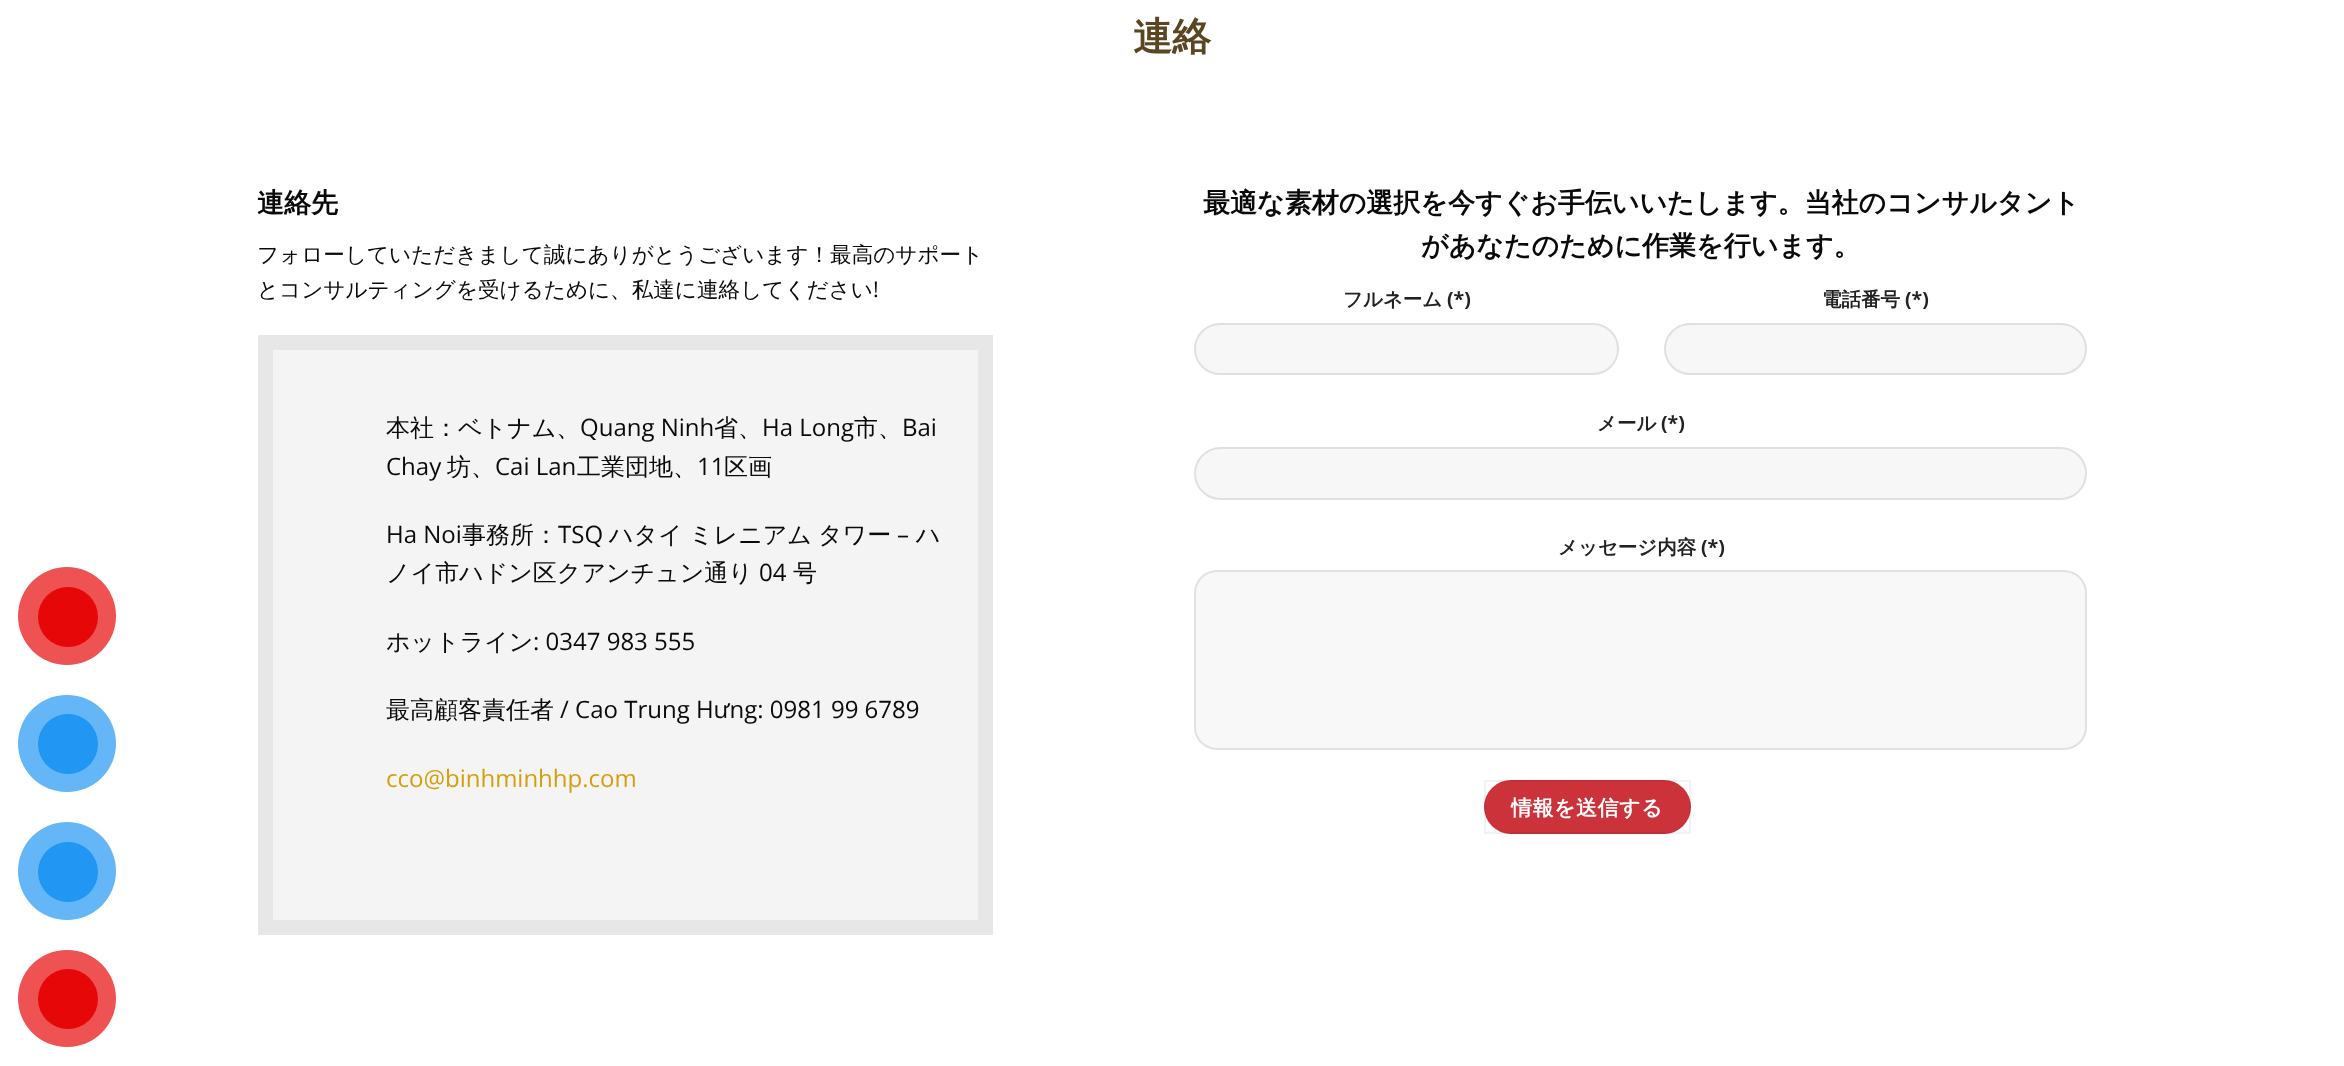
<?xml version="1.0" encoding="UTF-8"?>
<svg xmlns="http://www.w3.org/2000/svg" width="2344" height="1066">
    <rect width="100%" height="100%" fill="#FFFFFF"/>
    <circle cx="67" cy="616" r="49" fill="#EE5252"/>
    <circle cx="68" cy="617" r="30" fill="#E60808"/>
    <rect x="18" y="695" width="98" height="97" rx="48.5" fill="#64B6F7"/>
    <circle cx="68" cy="744" r="30" fill="#2196F3"/>
    <circle cx="67" cy="871" r="49" fill="#64B6F7"/>
    <circle cx="68" cy="872" r="30" fill="#2196F3"/>
    <rect x="18" y="950" width="98" height="97" rx="48.5" fill="#EE5252"/>
    <circle cx="68" cy="999" r="30" fill="#E60808"/>
    <text x="1133" y="50" font-family="WenQuanYi Zen Hei" font-size="39" font-weight="700" fill="#5C4621">連絡</text>
    <text x="257" y="212" font-family="WenQuanYi Zen Hei" font-size="27" font-weight="700" fill="#0A0A0A">連絡先</text>
    <text font-family="WenQuanYi Zen Hei" font-size="21.6" font-weight="500" fill="#0A0A0A">
        <tspan x="257" y="262">フォローしていただきまして誠にありがとうございます！最高のサポート</tspan>
        <tspan x="257" y="297">とコンサルティングを受けるために、私達に連絡してください</tspan>
    </text>
    <text x="873" y="297" font-family="Open Sans" font-size="21.6" fill="#0A0A0A">!</text>
    <rect x="265.5" y="342.5" width="720" height="585" fill="#F4F4F4" stroke="#E7E7E7" stroke-width="15"/>
    <text x="386" y="436" font-family="WenQuanYi Zen Hei" font-size="24" font-weight="500" fill="#0A0A0A">本社：ベトナム、</text>
    <text x="580" y="436" font-family="Open Sans" font-size="24" fill="#0A0A0A">Quang Ninh</text>
    <text x="714" y="436" font-family="WenQuanYi Zen Hei" font-size="24" font-weight="500" fill="#0A0A0A">省、</text>
    <text x="762" y="436" font-family="Open Sans" font-size="24" fill="#0A0A0A">Ha Long</text>
    <text x="854" y="436" font-family="WenQuanYi Zen Hei" font-size="24" font-weight="500" fill="#0A0A0A">市、</text>
    <text x="902" y="436" font-family="Open Sans" font-size="24" fill="#0A0A0A">Bai</text>
    <text x="386" y="475" font-family="Open Sans" font-size="24" fill="#0A0A0A">Chay</text>
    <text x="447" y="475" font-family="WenQuanYi Zen Hei" font-size="24" font-weight="500" fill="#0A0A0A">坊、</text>
    <text x="495" y="475" font-family="Open Sans" font-size="24" fill="#0A0A0A">Cai Lan</text>
    <text x="577" y="475" font-family="WenQuanYi Zen Hei" font-size="24" font-weight="500" fill="#0A0A0A">工業団地、</text>
    <text x="697" y="475" font-family="Open Sans" font-size="24" fill="#0A0A0A">11</text>
    <text x="724" y="475" font-family="WenQuanYi Zen Hei" font-size="24" font-weight="500" fill="#0A0A0A">区画</text>
    <text x="386" y="543" font-family="Open Sans" font-size="24" fill="#0A0A0A">Ha Noi</text>
    <text x="462" y="543" font-family="WenQuanYi Zen Hei" font-size="24" font-weight="500" fill="#0A0A0A">事務所：</text>
    <text x="558" y="543" font-family="Open Sans" font-size="24" fill="#0A0A0A">TSQ</text>
    <text x="609" y="543" font-family="WenQuanYi Zen Hei" font-size="24" font-weight="500" fill="#0A0A0A">ハタイ</text>
    <text x="689" y="543" font-family="WenQuanYi Zen Hei" font-size="24" font-weight="500" fill="#0A0A0A">ミレニアム</text>
    <text x="818" y="543" font-family="WenQuanYi Zen Hei" font-size="24" font-weight="500" fill="#0A0A0A">タワー</text>
    <text x="897" y="543" font-family="Open Sans" font-size="24" fill="#0A0A0A">–</text>
    <text x="916" y="543" font-family="WenQuanYi Zen Hei" font-size="24" font-weight="500" fill="#0A0A0A">ハ</text>
    <text x="386" y="581" font-family="WenQuanYi Zen Hei" font-size="24" font-weight="500" fill="#0A0A0A">ノイ市ハドン区クアンチュン通り</text>
    <text x="759" y="581" font-family="Open Sans" font-size="24" fill="#0A0A0A">04</text>
    <text x="793" y="581" font-family="WenQuanYi Zen Hei" font-size="24" font-weight="500" fill="#0A0A0A">号</text>
    <text x="386" y="650" font-family="WenQuanYi Zen Hei" font-size="24" font-weight="500" fill="#0A0A0A">ホットライン</text>
    <text x="533" y="650" font-family="Open Sans" font-size="24" fill="#0A0A0A">: 0347 983 555</text>
    <text x="386" y="718" font-family="WenQuanYi Zen Hei" font-size="24" font-weight="500" fill="#0A0A0A">最高顧客責任者</text>
    <text x="560" y="718" font-family="Open Sans" font-size="24" fill="#0A0A0A">/ Cao Trung Hưng: 0981 99 6789</text>
    <text x="386" y="787" font-family="Open Sans" font-size="24" fill="#D49F0B">cco@binhminhhp.com</text>
    <text x="1203" y="212" font-family="WenQuanYi Zen Hei" font-size="27" font-weight="700" fill="#0A0A0A">最適な素材の選択を今すぐお手伝いいたします。当社のコンサルタント</text>
    <text x="1421" y="255" font-family="WenQuanYi Zen Hei" font-size="27" font-weight="700" fill="#0A0A0A">があなたのために作業を行います。</text>
    <text x="1343" y="306" font-family="WenQuanYi Zen Hei" font-size="19.5" font-weight="700" fill="#222222">フルネーム</text>
    <text x="1447" y="306" font-family="Open Sans" font-size="19.5" font-weight="700" fill="#222222">(*)</text>
    <rect x="1194" y="323" width="425" height="52" rx="26" fill="#F7F7F7"/>
    <rect x="1195" y="324" width="423" height="50" rx="25" fill="none" stroke="#000000" stroke-opacity="0.09" stroke-width="2"/>
    <text x="1822" y="306" font-family="WenQuanYi Zen Hei" font-size="19.5" font-weight="700" fill="#222222">電話番号</text>
    <text x="1905" y="306" font-family="Open Sans" font-size="19.5" font-weight="700" fill="#222222">(*)</text>
    <rect x="1664" y="323" width="423" height="52" rx="26" fill="#F7F7F7"/>
    <rect x="1665" y="324" width="421" height="50" rx="25" fill="none" stroke="#000000" stroke-opacity="0.09" stroke-width="2"/>
    <text x="1597" y="430" font-family="WenQuanYi Zen Hei" font-size="19.5" font-weight="700" fill="#222222">メール</text>
    <text x="1661" y="430" font-family="Open Sans" font-size="19.5" font-weight="700" fill="#222222">(*)</text>
    <rect x="1194" y="447" width="893" height="53" rx="26.5" fill="#F7F7F7"/>
    <rect x="1195" y="448" width="891" height="51" rx="25.5" fill="none" stroke="#000000" stroke-opacity="0.09" stroke-width="2"/>
    <text x="1558" y="554" font-family="WenQuanYi Zen Hei" font-size="19.5" font-weight="700" fill="#222222">メッセージ内容</text>
    <text x="1701" y="554" font-family="Open Sans" font-size="19.5" font-weight="700" fill="#222222">(*)</text>
    <rect x="1194" y="570" width="893" height="180" rx="23" fill="#F8F8F8"/>
    <rect x="1195" y="571" width="891" height="178" rx="22" fill="none" stroke="#000000" stroke-opacity="0.09" stroke-width="2"/>
    <rect x="1484" y="780" width="207" height="54" rx="27" fill="#CC3239"/>
    <rect x="1485" y="781" width="205" height="52" fill="none" stroke="#000000" stroke-opacity="0.05" stroke-width="2"/>
    <text x="1511" y="815" font-family="WenQuanYi Zen Hei" font-size="21" font-weight="700" letter-spacing="0.5" fill="#FFFFFF">情報を送信する</text>
</svg>
